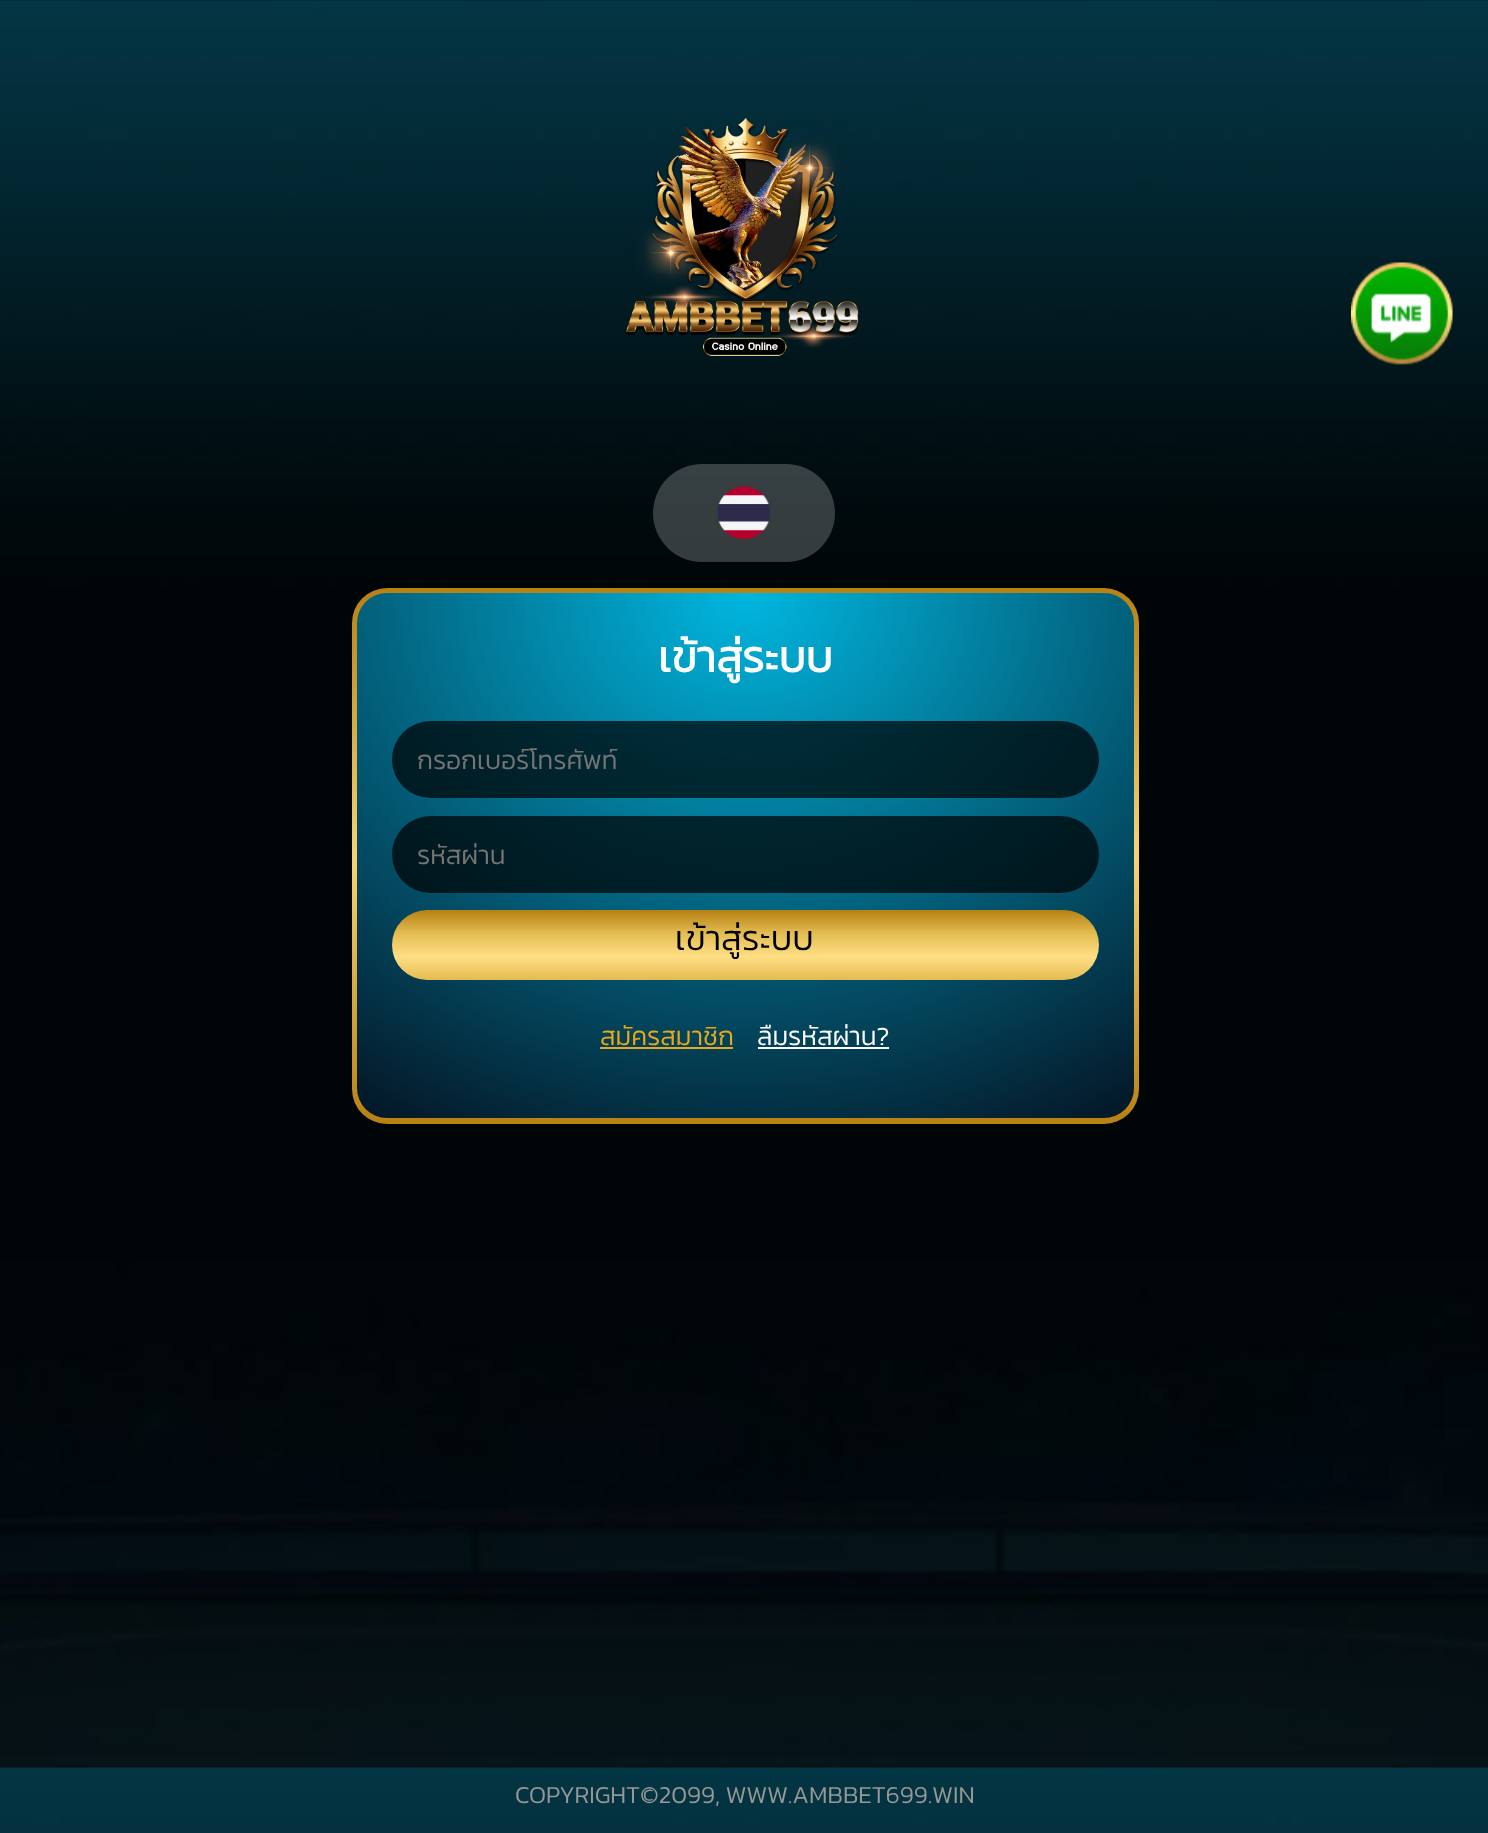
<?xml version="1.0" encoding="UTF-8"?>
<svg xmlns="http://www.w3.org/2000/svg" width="1488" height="1833">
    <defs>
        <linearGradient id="g1" gradientUnits="userSpaceOnUse" x1="746" y1="588" x2="746" y2="1124"><stop offset="0" stop-color="#B78113"/><stop offset="0.5" stop-color="#F6D475"/><stop offset="1" stop-color="#B78113"/></linearGradient>
        <radialGradient id="g2" gradientUnits="userSpaceOnUse" cx="0" cy="0" r="1" gradientTransform="matrix(699 0 0 604 746 593)"><stop offset="0" stop-color="#01B6DF"/><stop offset="1" stop-color="#041A2A"/></radialGradient>
        <linearGradient id="g3" gradientUnits="userSpaceOnUse" x1="746" y1="910" x2="746" y2="980"><stop offset="0" stop-color="#B68012"/><stop offset="0.33" stop-color="#E3BC51"/><stop offset="0.67" stop-color="#FFDF85"/><stop offset="1" stop-color="#E3BC51"/></linearGradient>
    </defs>
    <rect width="100%" height="100%" fill="#FFFFFF"/>
    <image x="0" y="0" width="1488" height="1833" href="img_01.png"/>
    <image x="1351" y="262" width="102" height="103" href="img_02.png"/>
    <image x="626" y="118" width="233" height="238" href="img_03.png"/>
    <rect x="653" y="464" width="182" height="98" rx="49" fill="#FFFFFF" fill-opacity="0.21"/>
    <image x="717" y="486" width="53" height="53" href="img_04.png"/>
    <rect x="352" y="588" width="787" height="536" rx="35" fill="url(#g1)"/>
    <rect x="357" y="593" width="777" height="525" rx="30" fill="url(#g2)"/>
    <text x="658" y="672" font-family="Kanit" font-size="44" font-weight="700" fill="#FFFFFF">เข้าสู่ระบบ</text>
    <rect x="392" y="721" width="707" height="77" rx="38.5" fill="#000000" fill-opacity="0.7"/>
    <text x="417" y="769" font-family="Kanit" font-size="26.25" font-weight="300" fill="#757575">กรอกเบอร์โทรศัพท์</text>
    <rect x="392" y="816" width="707" height="77" rx="38.5" fill="#000000" fill-opacity="0.7"/>
    <text x="417" y="864" font-family="Kanit" font-size="26.25" font-weight="300" fill="#757575">รหัสผ่าน</text>
    <rect x="392" y="910" width="707" height="70" rx="35" fill="url(#g3)"/>
    <text x="675" y="950" font-family="Kanit" font-size="35" font-weight="300" fill="#000000">เข้าสู่ระบบ</text>
    <text x="600" y="1045" font-family="Kanit" font-size="26.25" font-weight="300" fill="#E8A81B">สมัครสมาชิก</text>
    <rect x="600" y="1047" width="133" height="2" fill="#E8A81B"/>
    <text x="757" y="1045" font-family="Kanit" font-size="26.25" font-weight="300" fill="#FFFFFF">ลืมรหัสผ่าน?</text>
    <rect x="758" y="1047" width="131" height="2" fill="#FFFFFF"/>
    <text x="515" y="1803" font-family="Kanit" font-size="24.5" font-weight="300" fill="#979797">COPYRIGHT©2099, WWW.AMBBET699.WIN</text>
</svg>
